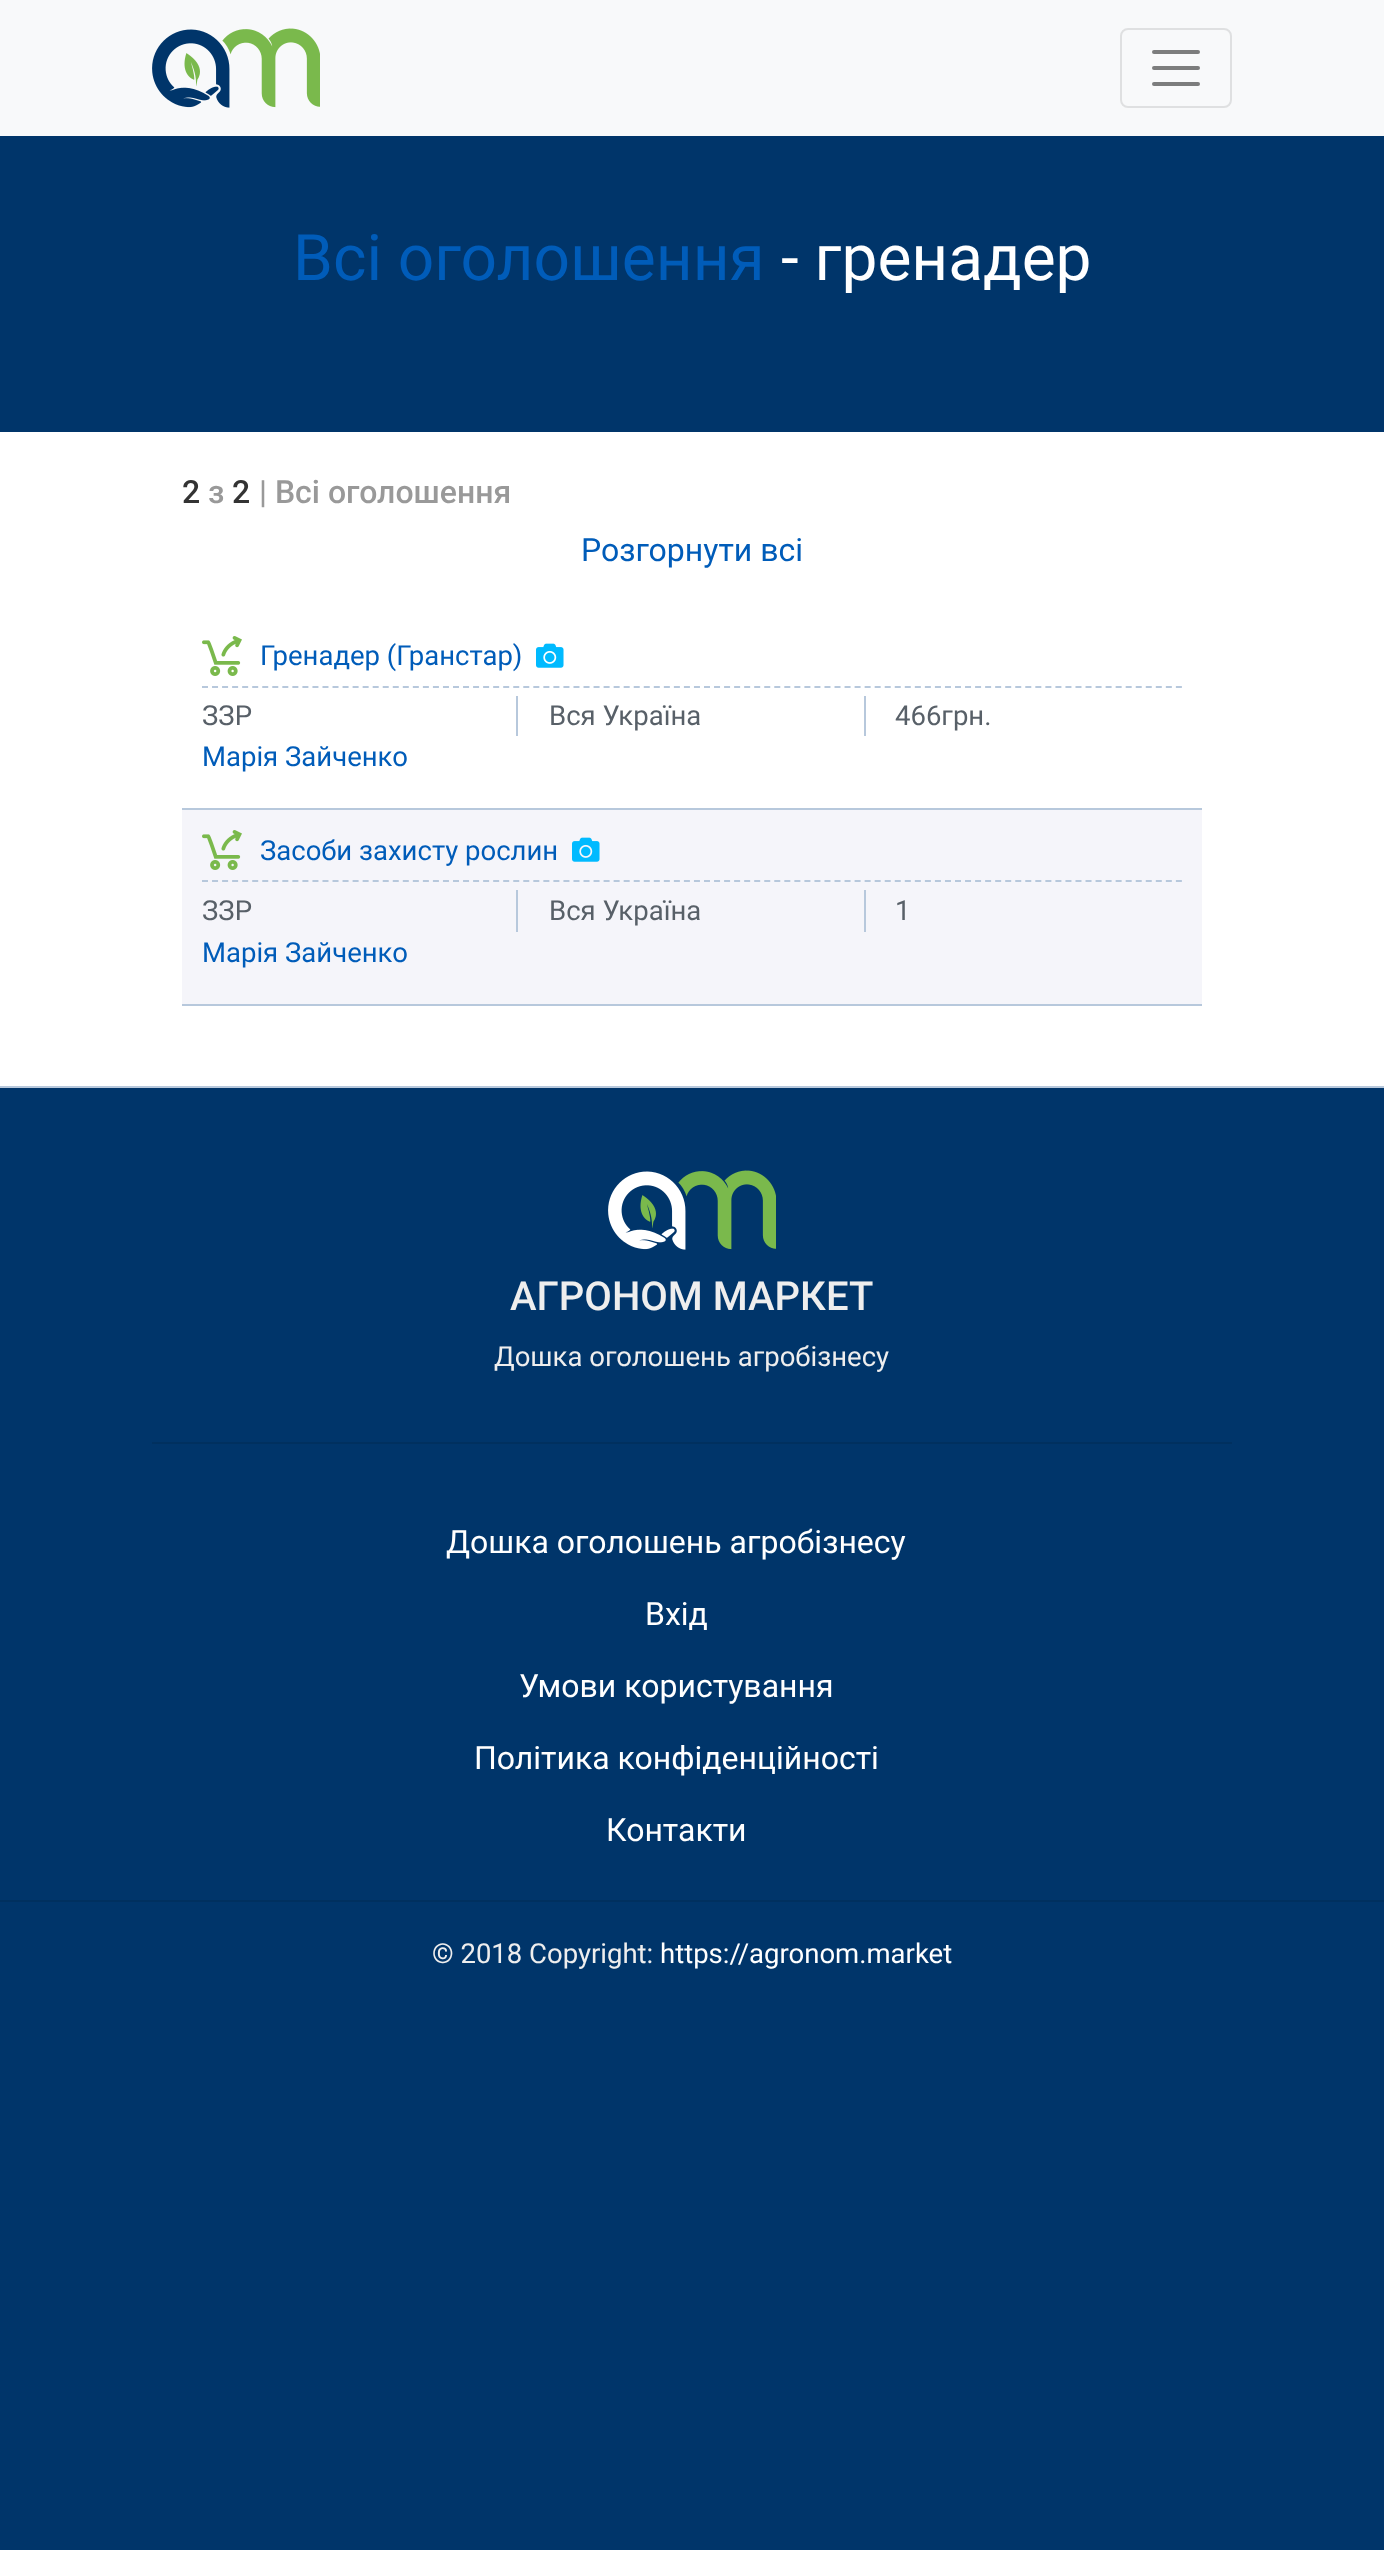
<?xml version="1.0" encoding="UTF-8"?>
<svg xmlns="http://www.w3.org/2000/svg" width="1384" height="2550">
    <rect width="100%" height="100%" fill="#00356A"/>
    <rect x="0" y="0" width="1384" height="136" fill="#F8F9FA"/>
    <image x="152" y="28" width="168" height="80" href="img_01.png"/>
    <rect x="1121" y="29" width="110" height="78" rx="7" fill="none" stroke="#DFE0E1" stroke-width="2"/>
    <path d="M 1154 52 H 1198 M 1154 68 H 1198 M 1154 84 H 1198" fill="none" stroke="#7C7D7D" stroke-width="4" stroke-linecap="round"/>
    <rect x="0" y="432" width="1384" height="654" fill="#FFFFFF"/>
    <text x="293" y="280" font-family="Roboto" font-size="64" fill="#005CB9">Всі оголошення</text>
    <text x="781" y="280" font-family="Roboto" font-size="64" fill="#FFFFFF">- гренадер</text>
    <text x="182" y="503" font-family="Roboto" font-size="32" font-weight="500" fill="#333333">2</text>
    <text x="208" y="503" font-family="Roboto" font-size="32" font-weight="500" fill="#999999">з</text>
    <text x="232" y="503" font-family="Roboto" font-size="32" font-weight="500" fill="#333333">2</text>
    <text x="259" y="503" font-family="Roboto" font-size="32" font-weight="500" fill="#999999">| Всі оголошення</text>
    <text x="581" y="561" font-family="Roboto" font-size="32" fill="#005CB9">Розгорнути всі</text>
    <rect x="182" y="808" width="1020" height="2" fill="#B7C8DC"/>
    <path d="M 202 687 H 1182" fill="none" stroke="#B7C8DC" stroke-width="2" stroke-dasharray="6 4.04"/>
    <image x="202" y="636" width="40" height="40" href="img_02.png"/>
    <text x="260" y="665" font-family="Roboto" font-size="27.5" fill="#005CB9">Гренадер (Гранстар)</text>
    <image x="536" y="643" width="28" height="25" href="img_03.png"/>
    <rect x="516" y="696" width="2" height="40" fill="#B7C8DC"/>
    <text x="202" y="725" font-family="Roboto" font-size="27.5" fill="#586068">ЗЗР</text>
    <rect x="864" y="696" width="2" height="40" fill="#B7C8DC"/>
    <text x="549" y="725" font-family="Roboto" font-size="27.5" fill="#586068">Вся Україна</text>
    <text x="895" y="725" font-family="Roboto" font-size="27.5" fill="#586068">466грн.</text>
    <text x="202" y="766" font-family="Roboto" font-size="27.5" fill="#005CB9">Марія Зайченко</text>
    <rect x="182" y="810" width="1020" height="194" fill="#F5F5FA"/>
    <rect x="182" y="1004" width="1020" height="2" fill="#B7C8DC"/>
    <path d="M 202 881 H 1182" fill="none" stroke="#B7C8DC" stroke-width="2" stroke-dasharray="6 4.04"/>
    <image x="202" y="830" width="40" height="40" href="img_04.png"/>
    <text x="260" y="860" font-family="Roboto" font-size="27.5" fill="#005CB9">Засоби захисту рослин</text>
    <image x="572" y="837" width="28" height="25" href="img_05.png"/>
    <rect x="516" y="890" width="2" height="42" fill="#B7C8DC"/>
    <text x="202" y="920" font-family="Roboto" font-size="27.5" fill="#586068">ЗЗР</text>
    <rect x="864" y="890" width="2" height="42" fill="#B7C8DC"/>
    <text x="549" y="920" font-family="Roboto" font-size="27.5" fill="#586068">Вся Україна</text>
    <text x="895" y="920" font-family="Roboto" font-size="27.5" fill="#586068">1</text>
    <text x="202" y="962" font-family="Roboto" font-size="27.5" fill="#005CB9">Марія Зайченко</text>
    <rect x="0" y="1086" width="1384" height="2" fill="#B7C8DC"/>
    <image x="608" y="1170" width="168" height="80" href="img_06.png"/>
    <text x="510" y="1310" font-family="Roboto" font-size="40" font-weight="500" fill="#EEEEEE">АГРОНОМ МАРКЕТ</text>
    <text x="494" y="1366" font-family="Roboto" font-size="27.5" fill="#EEEEEE">Дошка оголошень агробізнесу</text>
    <rect x="152" y="1442" width="1080" height="2" fill="#00305F"/>
    <text x="446" y="1553" font-family="Roboto" font-size="32" fill="#FFFFFF">Дошка оголошень агробізнесу</text>
    <text x="645" y="1625" font-family="Roboto" font-size="32" fill="#FFFFFF">Вхід</text>
    <text x="519" y="1697" font-family="Roboto" font-size="32" fill="#FFFFFF">Умови користування</text>
    <text x="474" y="1769" font-family="Roboto" font-size="32" fill="#FFFFFF">Політика конфіденційності</text>
    <text x="606" y="1841" font-family="Roboto" font-size="32" fill="#FFFFFF">Контакти</text>
    <rect x="0" y="1900" width="1384" height="2" fill="#00305F"/>
    <text x="432" y="1963" font-family="Roboto" font-size="27.5" fill="#EEEEEE">© 2018 Copyright:</text>
    <text x="660" y="1963" font-family="Roboto" font-size="27.5" fill="#FFFFFF">https://agronom.market</text>
</svg>
